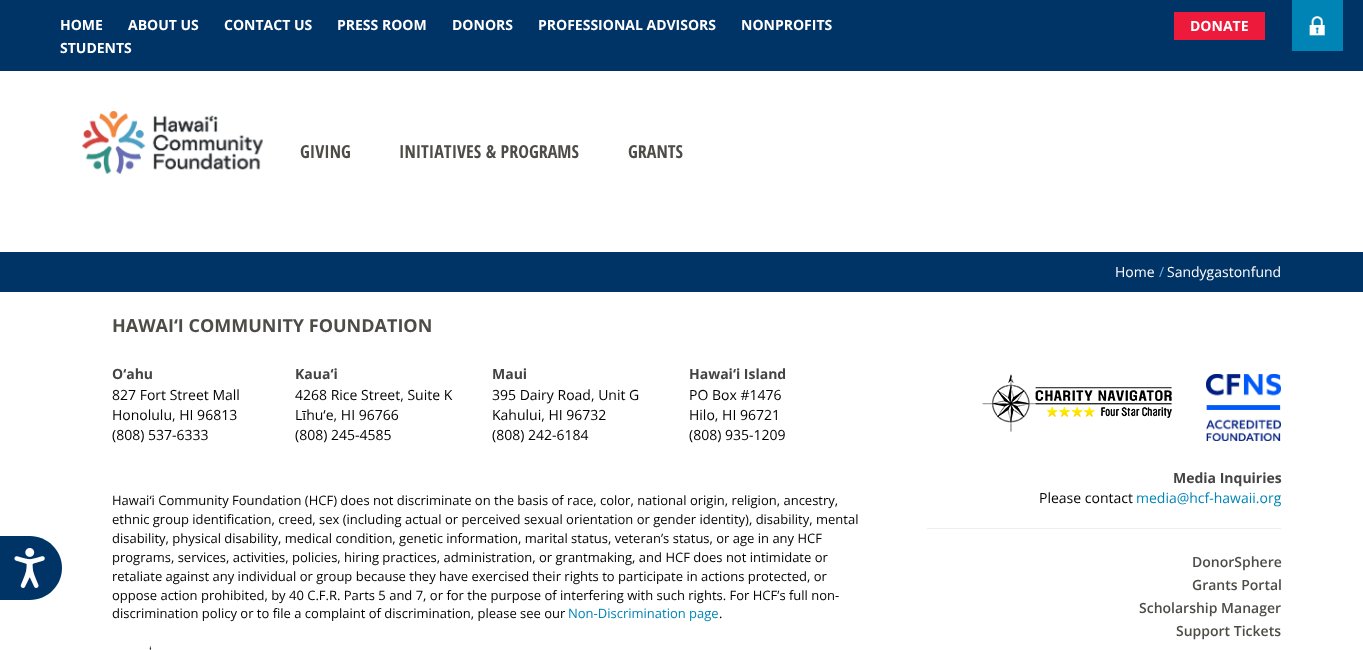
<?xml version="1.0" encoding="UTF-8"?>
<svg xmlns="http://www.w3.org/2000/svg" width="1363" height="650">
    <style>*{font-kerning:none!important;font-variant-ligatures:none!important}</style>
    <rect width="100%" height="100%" fill="#FFFFFF"/>
    <path d="M 0 536 H 30 C 47.5 536 62 550.5 62 568 C 62 585.5 47.5 600 30 600 H 0 Z" fill="#003366"/>
    <image x="14" y="548" width="31" height="40" href="img_01.png"/>
    <rect x="0" y="0" width="1363" height="71" fill="#003366"/>
    <text x="60" y="30" font-family="Open Sans" font-size="14" font-weight="700" fill="#FFFFFF">HOME</text>
    <text x="128" y="30" font-family="Open Sans" font-size="14" font-weight="700" fill="#FFFFFF">ABOUT US</text>
    <text x="224" y="30" font-family="Open Sans" font-size="14" font-weight="700" fill="#FFFFFF">CONTACT US</text>
    <text x="337" y="30" font-family="Open Sans" font-size="14" font-weight="700" fill="#FFFFFF">PRESS ROOM</text>
    <text x="452" y="30" font-family="Open Sans" font-size="14" font-weight="700" fill="#FFFFFF">DONORS</text>
    <text x="538" y="30" font-family="Open Sans" font-size="14" font-weight="700" fill="#FFFFFF">PROFESSIONAL ADVISORS</text>
    <text x="741" y="30" font-family="Open Sans" font-size="14" font-weight="700" fill="#FFFFFF">NONPROFITS</text>
    <text x="60" y="53" font-family="Open Sans" font-size="14" font-weight="700" fill="#FFFFFF">STUDENTS</text>
    <rect x="1174" y="12" width="91" height="28" fill="#ED1A3B"/>
    <text x="1190" y="31" font-family="Open Sans" font-size="14" font-weight="700" fill="#FFFFFF">DONATE</text>
    <rect x="1292" y="0" width="51" height="51" fill="#0084B6"/>
    <image x="1309" y="16" width="16" height="20" href="img_02.png"/>
    <image x="82" y="111" width="181" height="63" href="img_03.png"/>
    <text x="300" y="158" font-family="Open Sans Condensed" font-size="18" font-weight="700" fill="#4D4C47">GIVING</text>
    <text x="399" y="158" font-family="Open Sans Condensed" font-size="18" font-weight="700" fill="#4D4C47">INITIATIVES &amp; PROGRAMS</text>
    <text x="628" y="158" font-family="Open Sans Condensed" font-size="18" font-weight="700" fill="#4D4C47">GRANTS</text>
    <rect x="0" y="252" width="1363" height="40" fill="#003366"/>
    <text x="1115" y="277" font-family="Open Sans" font-size="14" fill="#FFFFFF">Home</text>
    <text x="1159" y="277" font-family="Open Sans" font-size="14" fill="#77B2E0">/</text>
    <text x="1167" y="277" font-family="Open Sans" font-size="14" fill="#FFFFFF">Sandygastonfund</text>
    <text x="112" y="332" font-family="Open Sans" font-size="18" font-weight="700" fill="#4D4C47">HAWAI‘I COMMUNITY FOUNDATION</text>
    <text x="112" y="379" font-family="Open Sans" font-size="14" font-weight="700" fill="#444444">O‘ahu</text>
    <text font-family="Open Sans" font-size="14" fill="#000000">
        <tspan x="112" y="400">827 Fort Street Mall</tspan>
        <tspan x="112" y="420">Honolulu, HI 96813</tspan>
        <tspan x="112" y="440">(808) 537-6333</tspan>
    </text>
    <text x="295" y="379" font-family="Open Sans" font-size="14" font-weight="700" fill="#444444">Kaua‘i</text>
    <text font-family="Open Sans" font-size="14" fill="#000000">
        <tspan x="295" y="400">4268 Rice Street, Suite K</tspan>
        <tspan x="295" y="420">Līhu‘e, HI 96766</tspan>
        <tspan x="295" y="440">(808) 245-4585</tspan>
    </text>
    <text x="492" y="379" font-family="Open Sans" font-size="14" font-weight="700" fill="#444444">Maui</text>
    <text font-family="Open Sans" font-size="14" fill="#000000">
        <tspan x="492" y="400">395 Dairy Road, Unit G</tspan>
        <tspan x="492" y="420">Kahului, HI 96732</tspan>
        <tspan x="492" y="440">(808) 242-6184</tspan>
    </text>
    <text x="689" y="379" font-family="Open Sans" font-size="14" font-weight="700" fill="#444444">Hawai‘i Island</text>
    <text font-family="Open Sans" font-size="14" fill="#000000">
        <tspan x="689" y="400">PO Box #1476</tspan>
        <tspan x="689" y="420">Hilo, HI 96721</tspan>
        <tspan x="689" y="440">(808) 935-1209</tspan>
    </text>
    <text font-family="Open Sans" font-size="13" fill="#000000">
        <tspan x="112" y="505">Hawai‘i Community Foundation (HCF) does not discriminate on the basis of race, color, national origin, religion, ancestry,</tspan>
        <tspan x="112" y="524">ethnic group identification, creed, sex (including actual or perceived sexual orientation or gender identity), disability, mental</tspan>
        <tspan x="112" y="543">disability, physical disability, medical condition, genetic information, marital status, veteran’s status, or age in any HCF</tspan>
        <tspan x="112" y="562">programs, services, activities, policies, hiring practices, administration, or grantmaking, and HCF does not intimidate or</tspan>
        <tspan x="112" y="581">retaliate against any individual or group because they have exercised their rights to participate in actions protected, or</tspan>
        <tspan x="112" y="600">oppose action prohibited, by 40 C.F.R. Parts 5 and 7, or for the purpose of interfering with such rights. For HCF’s full non-</tspan>
        <tspan x="112" y="618">discrimination policy or to file a complaint of discrimination, please see our</tspan>
    </text>
    <text x="568" y="618" font-family="Open Sans" font-size="13" fill="#0084B6">Non-Discrimination page</text>
    <text x="719" y="618" font-family="Open Sans" font-size="13" fill="#000000">.</text>
    <text x="149" y="656" font-family="Liberation Sans" font-size="13" fill="#000000">ʻ</text>
    <image x="982" y="374" width="190" height="58" href="img_04.png"/>
    <image x="1206" y="374" width="75" height="67" href="img_05.png"/>
    <text x="1173" y="483" font-family="Open Sans" font-size="14" font-weight="700" fill="#444444">Media Inquiries</text>
    <rect x="927" y="528" width="354" height="1" fill="#EEEEEE"/>
    <text x="1039" y="503" font-family="Open Sans" font-size="14" fill="#000000">Please contact</text>
    <text x="1136" y="503" font-family="Open Sans" font-size="14" fill="#0084B6">media@hcf-hawaii.org</text>
    <text font-family="Open Sans" font-size="14" font-weight="600" fill="#4D4C47">
        <tspan x="1192" y="567">DonorSphere</tspan>
        <tspan x="1192" y="590">Grants Portal</tspan>
    </text>
    <text x="1139" y="613" font-family="Open Sans" font-size="14" font-weight="600" fill="#4D4C47">Scholarship Manager</text>
    <text x="1176" y="636" font-family="Open Sans" font-size="14" font-weight="600" fill="#4D4C47">Support Tickets</text>
</svg>
